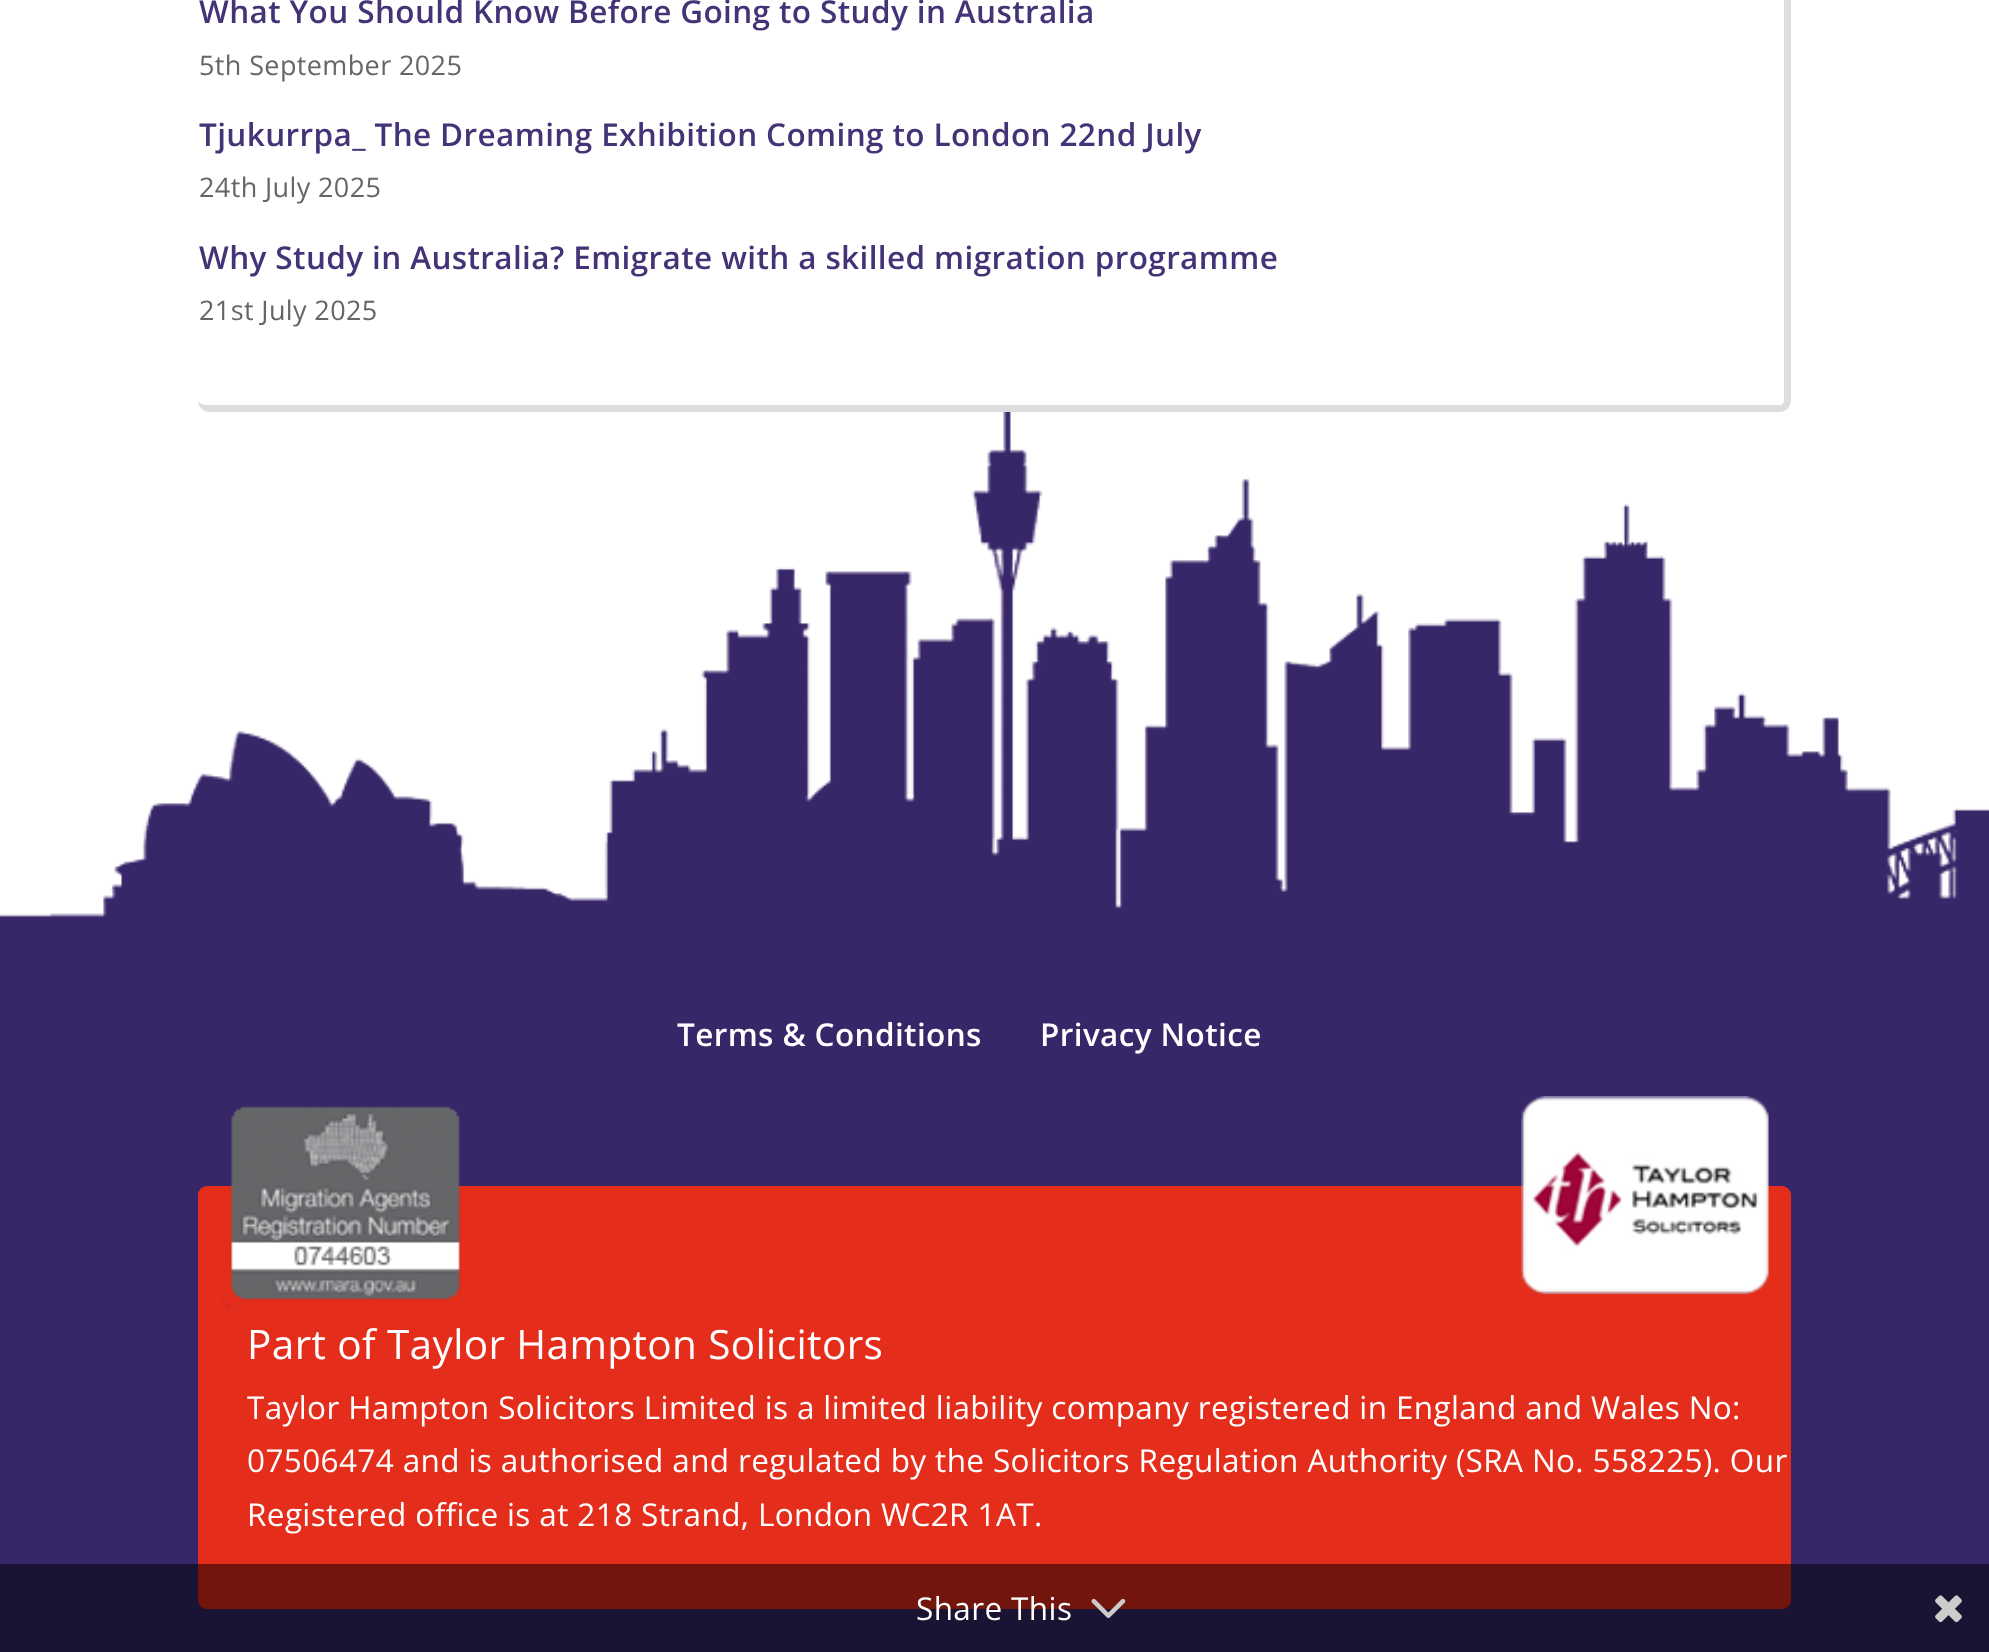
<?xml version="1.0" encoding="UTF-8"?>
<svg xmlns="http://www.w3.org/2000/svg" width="1989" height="1652">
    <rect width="100%" height="100%" fill="#FFFFFF"/>
    <path d="M 209 -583 H 1780 C 1786 -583 1791 -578 1791 -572 V 400 C 1791 407 1786 412 1780 412 H 209 C 203 412 198 407 198 400 V -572 C 198 -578 203 -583 209 -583 Z M 209 -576 H 1780 C 1782 -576 1784 -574 1784 -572 V 400 C 1784 403 1782 405 1780 405 H 209 C 203 405 198 403 198 400 V -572 C 198 -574 203 -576 209 -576 Z" fill="#DDDDDD" fill-rule="evenodd"/>
    <text x="199" y="23" font-family="Open Sans" font-size="31.5" font-weight="600" letter-spacing="0.38" fill="#443377">What You Should Know Before Going to Study in Australia</text>
    <text x="199" y="75" font-family="Open Sans" font-size="27" letter-spacing="0.38" fill="#666666">5th September 2025</text>
    <text x="199" y="146" font-family="Open Sans" font-size="31.5" font-weight="600" letter-spacing="0.38" fill="#443377">Tjukurrpa_ The Dreaming Exhibition Coming to London 22nd July</text>
    <text x="199" y="197" font-family="Open Sans" font-size="27" letter-spacing="0.38" fill="#666666">24th July 2025</text>
    <text x="199" y="269" font-family="Open Sans" font-size="31.5" font-weight="600" letter-spacing="0.38" fill="#443377">Why Study in Australia? Emigrate with a skilled migration programme</text>
    <text x="199" y="320" font-family="Open Sans" font-size="27" letter-spacing="0.38" fill="#666666">21st July 2025</text>
    <image x="0" y="412" width="1989" height="1240" href="img_01.png"/>
    <text x="677" y="1046" font-family="Open Sans" font-size="31.5" font-weight="600" letter-spacing="0.38" fill="#FFFFFF">Terms &amp; Conditions</text>
    <text x="1040" y="1046" font-family="Open Sans" font-size="31.5" font-weight="600" letter-spacing="0.38" fill="#FFFFFF">Privacy Notice</text>
    <rect x="198" y="1186" width="1593" height="423" rx="9" fill="#E42D1B"/>
    <image x="221" y="1106" width="241" height="204" href="img_02.png"/>
    <image x="1521" y="1096" width="248" height="198" href="img_03.png"/>
    <text x="247" y="1359" font-family="Open Sans" font-size="40.5" letter-spacing="0.38" fill="#FFFFFF">Part of Taylor Hampton Solicitors</text>
    <text font-family="Open Sans" font-size="31.5" letter-spacing="0.38" fill="#FFFFFF">
        <tspan x="247" y="1419">Taylor Hampton Solicitors Limited is a limited liability company registered in England and Wales No:</tspan>
        <tspan x="247" y="1472">07506474 and is authorised and regulated by the Solicitors Regulation Authority (SRA No. 558225). Our</tspan>
        <tspan x="247" y="1526">Registered office is at 218 Strand, London WC2R 1AT.</tspan>
    </text>
    <rect x="0" y="1564" width="1989" height="88" fill="#000000" fill-opacity="0.5"/>
    <text x="916" y="1620" font-family="Open Sans" font-size="31.5" letter-spacing="0.38" fill="#FFFFFF">Share This</text>
    <image x="1091" y="1598" width="35" height="20" href="img_04.png"/>
    <image x="1935" y="1595" width="27" height="28" href="img_05.png"/>
</svg>
